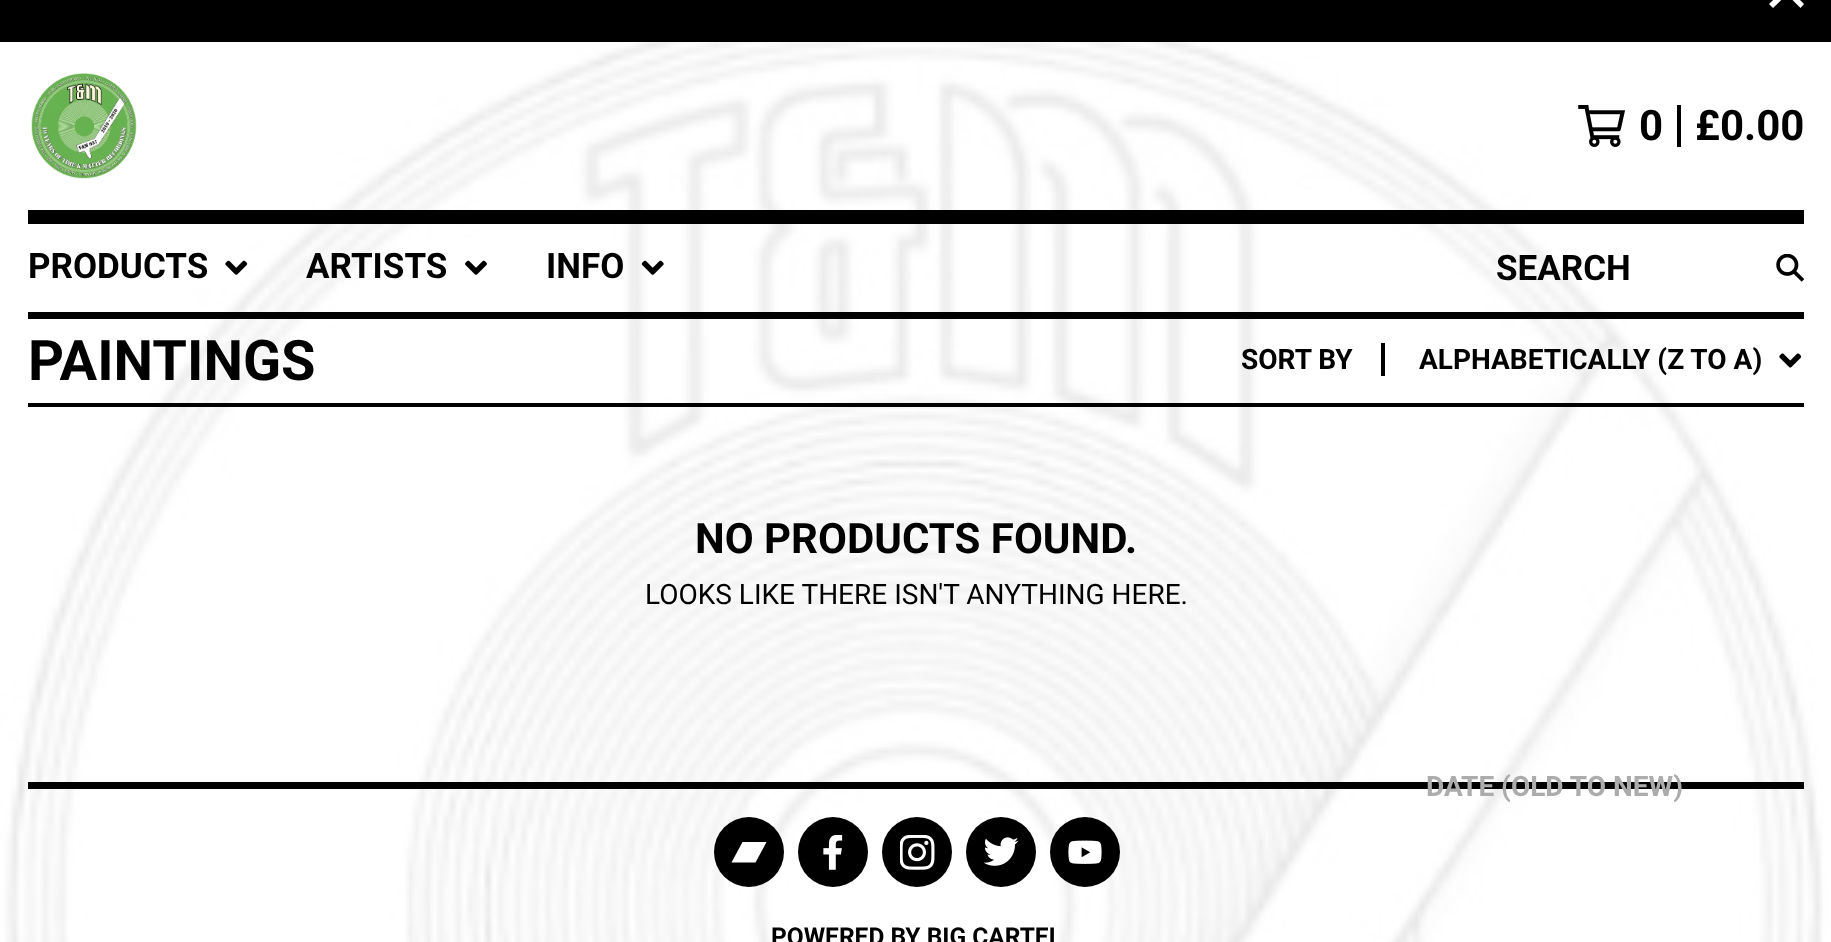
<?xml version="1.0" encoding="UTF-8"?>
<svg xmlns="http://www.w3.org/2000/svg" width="1831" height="942">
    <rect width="100%" height="100%" fill="#FFFFFF"/>
    <image x="0" y="42" width="1831" height="900" href="img_01.png"/>
    <rect x="0" y="0" width="1831" height="42" fill="#000000"/>
    <path d="M 1800.5 -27 L 1804 -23 L 1790.5 -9.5 L 1804 4 L 1800.5 8 L 1787 -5.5 L 1773 8 L 1769 4 L 1783 -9.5 L 1769 -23 L 1773 -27 L 1787 -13.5 Z" fill="#FFFFFF" fill-rule="evenodd"/>
    <rect x="28" y="210" width="1776" height="14" fill="#000000"/>
    <image x="31" y="73" width="106" height="108" href="img_02.png"/>
    <image x="1578" y="105" width="47" height="42" href="img_03.png"/>
    <rect x="1677" y="105" width="4" height="42" fill="#000000"/>
    <text x="1639" y="140" font-family="Roboto" font-size="42" font-weight="700" fill="#000000">0</text>
    <text x="1695" y="140" font-family="Roboto" font-size="42" font-weight="700" fill="#000000">£0.00</text>
    <rect x="28" y="312" width="1776" height="7" fill="#000000"/>
    <text x="28" y="278" font-family="Roboto" font-size="35" font-weight="700" fill="#000000">PRODUCTS</text>
    <image x="225" y="260" width="23" height="15" href="img_04.png"/>
    <text x="306" y="278" font-family="Roboto" font-size="35" font-weight="700" fill="#000000">ARTISTS</text>
    <image x="465" y="260" width="22" height="15" href="img_05.png"/>
    <text x="546" y="278" font-family="Roboto" font-size="35" font-weight="700" fill="#000000">INFO</text>
    <image x="641" y="260" width="23" height="15" href="img_06.png"/>
    <text x="1496" y="280" font-family="Roboto" font-size="35" font-weight="700" fill="#000000">SEARCH</text>
    <image x="1776" y="254" width="28" height="28" href="img_07.png"/>
    <rect x="28" y="403" width="1776" height="4" fill="#000000"/>
    <text x="28" y="380" font-family="Roboto" font-size="56" font-weight="700" fill="#000000">PAINTINGS</text>
    <text x="1241" y="369" font-family="Roboto" font-size="28" font-weight="700" fill="#000000">SORT BY</text>
    <rect x="1381" y="343" width="4" height="33" fill="#000000"/>
    <text x="1419" y="369" font-family="Roboto" font-size="28" font-weight="700" fill="#000000">ALPHABETICALLY (Z TO A)</text>
    <image x="1779" y="353" width="23" height="15" href="img_08.png"/>
    <rect x="28" y="782" width="1776" height="7" fill="#000000"/>
    <text x="1426" y="796" font-family="Roboto" font-size="28" font-weight="700" fill="#ACACAC">DATE (OLD TO NEW)</text>
    <text x="695" y="553" font-family="Roboto" font-size="42" font-weight="700" fill="#000000">NO PRODUCTS FOUND.</text>
    <text x="645" y="604" font-family="Roboto" font-size="28" fill="#000000">LOOKS LIKE THERE ISN'T ANYTHING HERE.</text>
    <circle cx="749" cy="852" r="35" fill="#000000"/>
    <path d="M 755.5 862.5 H 731.5 L 742.5 842 H 766.5 Z" fill="#FFFFFF"/>
    <circle cx="833" cy="852" r="35" fill="#000000"/>
    <image x="823" y="835" width="20" height="35" href="img_09.png"/>
    <circle cx="917" cy="852" r="35" fill="#000000"/>
    <image x="900" y="835" width="35" height="35" href="img_10.png"/>
    <circle cx="1001" cy="852" r="35" fill="#000000"/>
    <image x="984" y="837" width="35" height="29" href="img_11.png"/>
    <circle cx="1085" cy="852" r="35" fill="#000000"/>
    <image x="1068" y="840" width="34" height="24" href="img_12.png"/>
    <text x="771" y="945" font-family="Roboto" font-size="24.5" font-weight="700" fill="#000000">POWERED BY BIG CARTEL</text>
</svg>
